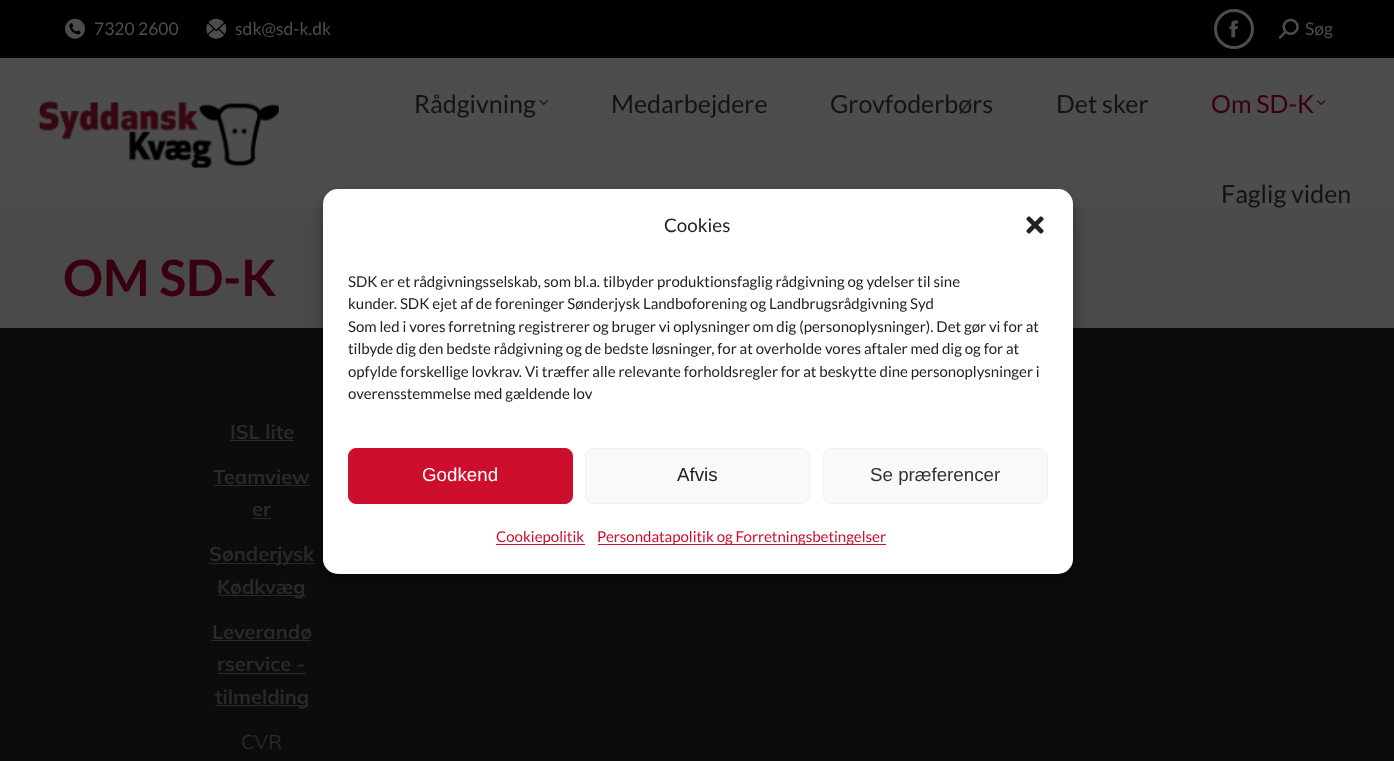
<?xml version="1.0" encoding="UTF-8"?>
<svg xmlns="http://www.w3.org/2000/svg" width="1394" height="761">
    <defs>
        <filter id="blur1" x="-50%" y="-200%" width="200%" height="500%"><feGaussianBlur stdDeviation="4"/></filter>
        <filter id="blur2" x="-50%" y="-200%" width="200%" height="500%"><feGaussianBlur stdDeviation="12.5"/></filter>
    </defs>
    <rect width="100%" height="100%" fill="#4A4A4A"/>
    <rect x="0" y="58" width="1394" height="150" fill="#4D4D4D"/>
    <rect x="0" y="0" width="1394" height="58" fill="#000000"/>
    <image x="65" y="18" width="20" height="21" href="img_01.png"/>
    <text x="94" y="35" font-family="Lato" font-size="17.5" fill="#4D4D4D">7320 2600</text>
    <image x="206" y="18" width="21" height="21" href="img_02.png"/>
    <text x="235" y="35" font-family="Lato" font-size="17.5" fill="#4D4D4D">sdk@sd-k.dk</text>
    <circle cx="1234" cy="29" r="18.5" fill="none" stroke="#4D4D4D" stroke-width="3"/>
    <image x="1229" y="20" width="9" height="18" href="img_03.png"/>
    <image x="1278" y="18" width="21" height="21" href="img_04.png"/>
    <text x="1305" y="35" font-family="Lato" font-size="17.5" fill="#4D4D4D">Søg</text>
    <rect x="0" y="56" width="1394" height="1" fill="#080808"/>
    <image x="38" y="101" width="241" height="67" href="img_05.png"/>
    <text x="414" y="113" font-family="Lato" font-size="25" fill="#151312">Rådgivning</text>
    <image x="539" y="100" width="10" height="5" href="img_06.png"/>
    <text x="611" y="113" font-family="Lato" font-size="25" fill="#151312">Medarbejdere</text>
    <text x="830" y="113" font-family="Lato" font-size="25" fill="#151312">Grovfoderbørs</text>
    <text x="1056" y="113" font-family="Lato" font-size="25" fill="#151312">Det sker</text>
    <text x="1211" y="113" font-family="Lato" font-size="25" fill="#38000F">Om SD-K</text>
    <image x="1316" y="100" width="10" height="5" href="img_07.png"/>
    <text x="1221" y="203" font-family="Lato" font-size="25" fill="#151312">Faglig viden</text>
    <text x="63" y="296" font-family="Lato" font-size="50" font-weight="700" fill="#38000F">OM SD-K</text>
    <rect x="0" y="328" width="1394" height="433" fill="#0D0C0B"/>
    <text x="230" y="439" font-family="Mulish" font-size="20" font-weight="700" fill="#2A2929">ISL lite</text>
    <rect x="230" y="440" width="64" height="1" fill="#2A2929"/>
    <text x="213" y="484" font-family="Mulish" font-size="20" font-weight="700" fill="#2A2929">Teamview</text>
    <rect x="214" y="485" width="96" height="1" fill="#2A2929"/>
    <text x="252" y="516" font-family="Mulish" font-size="20" font-weight="700" fill="#2A2929">er</text>
    <rect x="253" y="518" width="18" height="1" fill="#2A2929"/>
    <rect x="209" y="563" width="105" height="1" fill="#2A2929"/>
    <text x="209" y="561" font-family="Mulish" font-size="20" font-weight="700" fill="#2A2929">Sønderjysk</text>
    <rect x="218" y="595" width="88" height="1" fill="#2A2929"/>
    <text x="217" y="594" font-family="Mulish" font-size="20" font-weight="700" fill="#2A2929">Kødkvæg</text>
    <text x="212" y="639" font-family="Mulish" font-size="20" font-weight="700" fill="#2A2929">Leverandø</text>
    <rect x="211" y="640" width="100" height="1" fill="#2A2929"/>
    <text x="217" y="671" font-family="Mulish" font-size="20" font-weight="700" fill="#2A2929">rservice -</text>
    <rect x="218" y="673" width="88" height="1" fill="#2A2929"/>
    <rect x="215" y="705" width="94" height="1" fill="#2A2929"/>
    <text x="215" y="704" font-family="Mulish" font-size="20" font-weight="700" fill="#2A2929">tilmelding</text>
    <text x="241" y="749" font-family="Mulish" font-size="20" fill="#2A2929">CVR</text>
    <rect x="323" y="196" width="750" height="385" rx="15" fill="#000000" fill-opacity="0.23" filter="url(#blur1)"/>
    <rect x="323" y="201" width="750" height="385" rx="15" fill="#000000" fill-opacity="0.19" filter="url(#blur2)"/>
    <rect x="323" y="189" width="750" height="385" rx="15" fill="#FFFFFF"/>
    <text x="664" y="232" font-family="Lato" font-size="18.75" fill="#222222">Cookies</text>
    <image x="1026" y="216" width="18" height="18" href="img_08.png"/>
    <text font-family="Lato" font-size="15" fill="#222222">
        <tspan x="348" y="287">SDK er et rådgivningsselskab, som bl.a. tilbyder produktionsfaglig rådgivning og ydelser til sine</tspan>
        <tspan x="348" y="309">kunder. SDK ejet af de foreninger Sønderjysk Landboforening og Landbrugsrådgivning Syd</tspan>
        <tspan x="348" y="332">Som led i vores forretning registrerer og bruger vi oplysninger om dig (personoplysninger). Det gør vi for at</tspan>
        <tspan x="348" y="354">tilbyde dig den bedste rådgivning og de bedste løsninger, for at overholde vores aftaler med dig og for at</tspan>
        <tspan x="348" y="377">opfylde forskellige lovkrav. Vi træffer alle relevante forholdsregler for at beskytte dine personoplysninger i</tspan>
        <tspan x="348" y="399">overensstemmelse med gældende lov</tspan>
    </text>
    <rect x="348.5" y="448.5" width="224" height="55" rx="7.5" fill="#CE0E2D" stroke="#CE0E2D"/>
    <text x="422" y="481" font-family="Liberation Sans" font-size="18.75" fill="#FFFFFF">Godkend</text>
    <rect x="585.5" y="448.5" width="224" height="55" rx="7.5" fill="#F9F9F9" stroke="#F2F2F2"/>
    <text x="677" y="481" font-family="Liberation Sans" font-size="18.75" fill="#222222">Afvis</text>
    <rect x="823.5" y="448.5" width="224" height="55" rx="7.5" fill="#F9F9F9" stroke="#F2F2F2"/>
    <text x="870" y="481" font-family="Liberation Sans" font-size="18.75" fill="#333333">Se præferencer</text>
    <rect x="496" y="544" width="89" height="1" fill="#CE0E2D"/>
    <text x="496" y="542" font-family="Lato" font-size="15" fill="#CE0E2D">Cookiepolitik</text>
    <rect x="598" y="544" width="288" height="1" fill="#CE0E2D"/>
    <text x="597" y="542" font-family="Lato" font-size="15" fill="#CE0E2D">Persondatapolitik og Forretningsbetingelser</text>
</svg>
